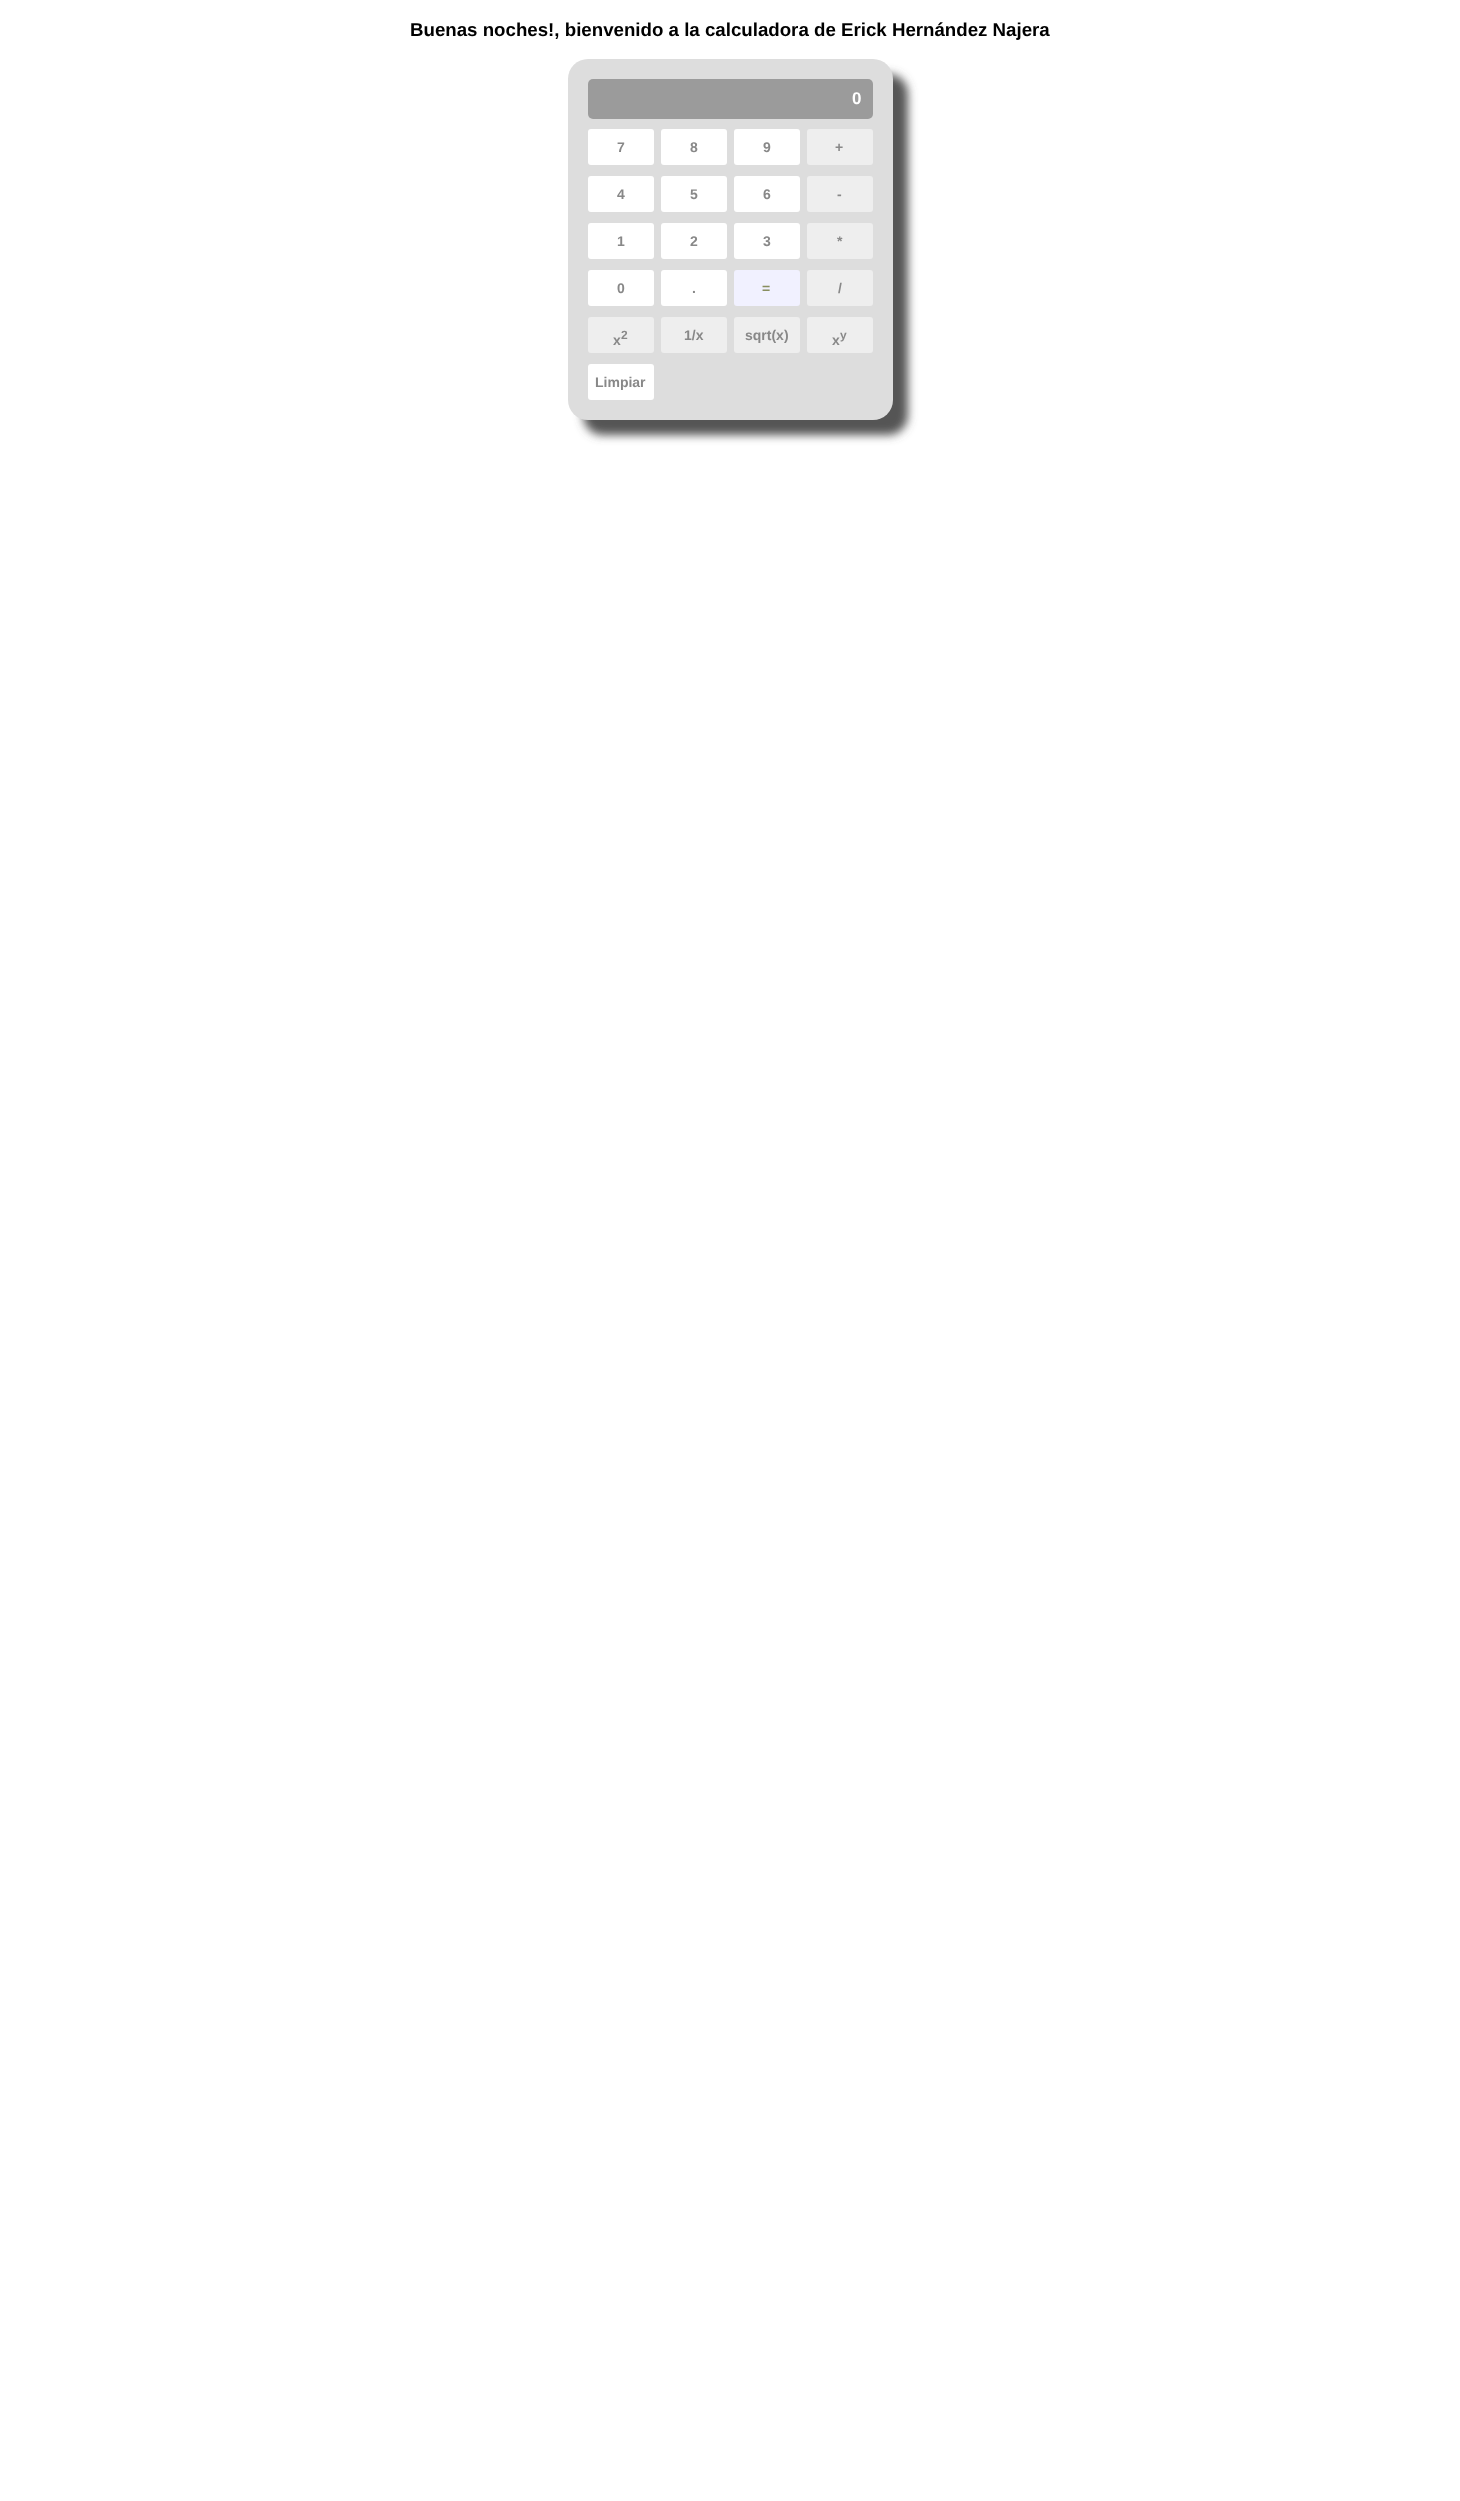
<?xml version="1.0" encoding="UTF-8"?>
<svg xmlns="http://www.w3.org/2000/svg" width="1460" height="2501">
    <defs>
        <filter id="blur1" x="-50%" y="-200%" width="200%" height="500%"><feGaussianBlur stdDeviation="5"/></filter>
    </defs>
    <rect width="100%" height="100%" fill="#FFFFFF"/>
    <text x="410" y="36" font-family="Liberation Sans" font-size="18.7" font-weight="700" fill="#000000">Buenas noches!, bienvenido a la calculadora de Erick Hernández Najera</text>
    <rect x="583" y="74" width="325" height="361" rx="20" fill="#555555" filter="url(#blur1)"/>
    <rect x="568" y="59" width="325" height="361" rx="20" fill="#DDDDDD"/>
    <rect x="588" y="79" width="285" height="40" rx="5" fill="#9B9B9B"/>
    <text x="852" y="104" font-family="Liberation Sans" font-size="17" font-weight="700" letter-spacing="1" fill="#FFFFFF">0</text>
    <rect x="588" y="129" width="66" height="36" rx="3" fill="#FFFFFF"/>
    <text x="617" y="152" font-family="Liberation Sans" font-size="14" font-weight="700" fill="#888888">7</text>
    <rect x="661" y="129" width="66" height="36" rx="3" fill="#FFFFFF"/>
    <text x="690" y="152" font-family="Liberation Sans" font-size="14" font-weight="700" fill="#888888">8</text>
    <rect x="734" y="129" width="66" height="36" rx="3" fill="#FFFFFF"/>
    <text x="763" y="152" font-family="Liberation Sans" font-size="14" font-weight="700" fill="#888888">9</text>
    <rect x="807" y="129" width="66" height="36" rx="3" fill="#EEEEEE"/>
    <text x="835" y="152" font-family="Liberation Sans" font-size="14" font-weight="700" fill="#888888">+</text>
    <rect x="588" y="176" width="66" height="36" rx="3" fill="#FFFFFF"/>
    <text x="617" y="199" font-family="Liberation Sans" font-size="14" font-weight="700" fill="#888888">4</text>
    <rect x="661" y="176" width="66" height="36" rx="3" fill="#FFFFFF"/>
    <text x="690" y="199" font-family="Liberation Sans" font-size="14" font-weight="700" fill="#888888">5</text>
    <rect x="734" y="176" width="66" height="36" rx="3" fill="#FFFFFF"/>
    <text x="763" y="199" font-family="Liberation Sans" font-size="14" font-weight="700" fill="#888888">6</text>
    <rect x="807" y="176" width="66" height="36" rx="3" fill="#EEEEEE"/>
    <text x="837" y="199" font-family="Liberation Sans" font-size="14" font-weight="700" fill="#888888">-</text>
    <rect x="588" y="223" width="66" height="36" rx="3" fill="#FFFFFF"/>
    <text x="617" y="246" font-family="Liberation Sans" font-size="14" font-weight="700" fill="#888888">1</text>
    <rect x="661" y="223" width="66" height="36" rx="3" fill="#FFFFFF"/>
    <text x="690" y="246" font-family="Liberation Sans" font-size="14" font-weight="700" fill="#888888">2</text>
    <rect x="734" y="223" width="66" height="36" rx="3" fill="#FFFFFF"/>
    <text x="763" y="246" font-family="Liberation Sans" font-size="14" font-weight="700" fill="#888888">3</text>
    <rect x="807" y="223" width="66" height="36" rx="3" fill="#EEEEEE"/>
    <text x="837" y="246" font-family="Liberation Sans" font-size="14" font-weight="700" fill="#888888">*</text>
    <rect x="588" y="270" width="66" height="36" rx="3" fill="#FFFFFF"/>
    <text x="617" y="293" font-family="Liberation Sans" font-size="14" font-weight="700" fill="#888888">0</text>
    <rect x="661" y="270" width="66" height="36" rx="3" fill="#FFFFFF"/>
    <text x="692" y="293" font-family="Liberation Sans" font-size="14" font-weight="700" fill="#888888">.</text>
    <rect x="734" y="270" width="66" height="36" rx="3" fill="#F1F1FF"/>
    <text x="762" y="293" font-family="Liberation Sans" font-size="14" font-weight="700" fill="#888E5F">=</text>
    <rect x="807" y="270" width="66" height="36" rx="3" fill="#EEEEEE"/>
    <text x="838" y="293" font-family="Liberation Sans" font-size="14" font-weight="700" fill="#888888">/</text>
    <rect x="588" y="317" width="66" height="36" rx="3" fill="#EEEEEE"/>
    <text x="621" y="339" font-family="Liberation Sans" font-size="12" font-weight="700" fill="#888888">2</text>
    <text x="613" y="345" font-family="Liberation Sans" font-size="14" font-weight="700" fill="#888888">x</text>
    <rect x="661" y="317" width="66" height="36" rx="3" fill="#EEEEEE"/>
    <text x="684" y="340" font-family="Liberation Sans" font-size="14" font-weight="700" fill="#888888">1/x</text>
    <rect x="734" y="317" width="66" height="36" rx="3" fill="#EEEEEE"/>
    <text x="745" y="340" font-family="Liberation Sans" font-size="14" font-weight="700" fill="#888888">sqrt(x)</text>
    <rect x="807" y="317" width="66" height="36" rx="3" fill="#EEEEEE"/>
    <text x="832" y="345" font-family="Liberation Sans" font-size="14" font-weight="700" fill="#888888">x</text>
    <text x="840" y="339" font-family="Liberation Sans" font-size="12" font-weight="700" fill="#888888">y</text>
    <rect x="588" y="364" width="66" height="36" rx="3" fill="#FFFFFF"/>
    <text x="595" y="387" font-family="Liberation Sans" font-size="14" font-weight="700" fill="#888888">Limpiar</text>
</svg>
